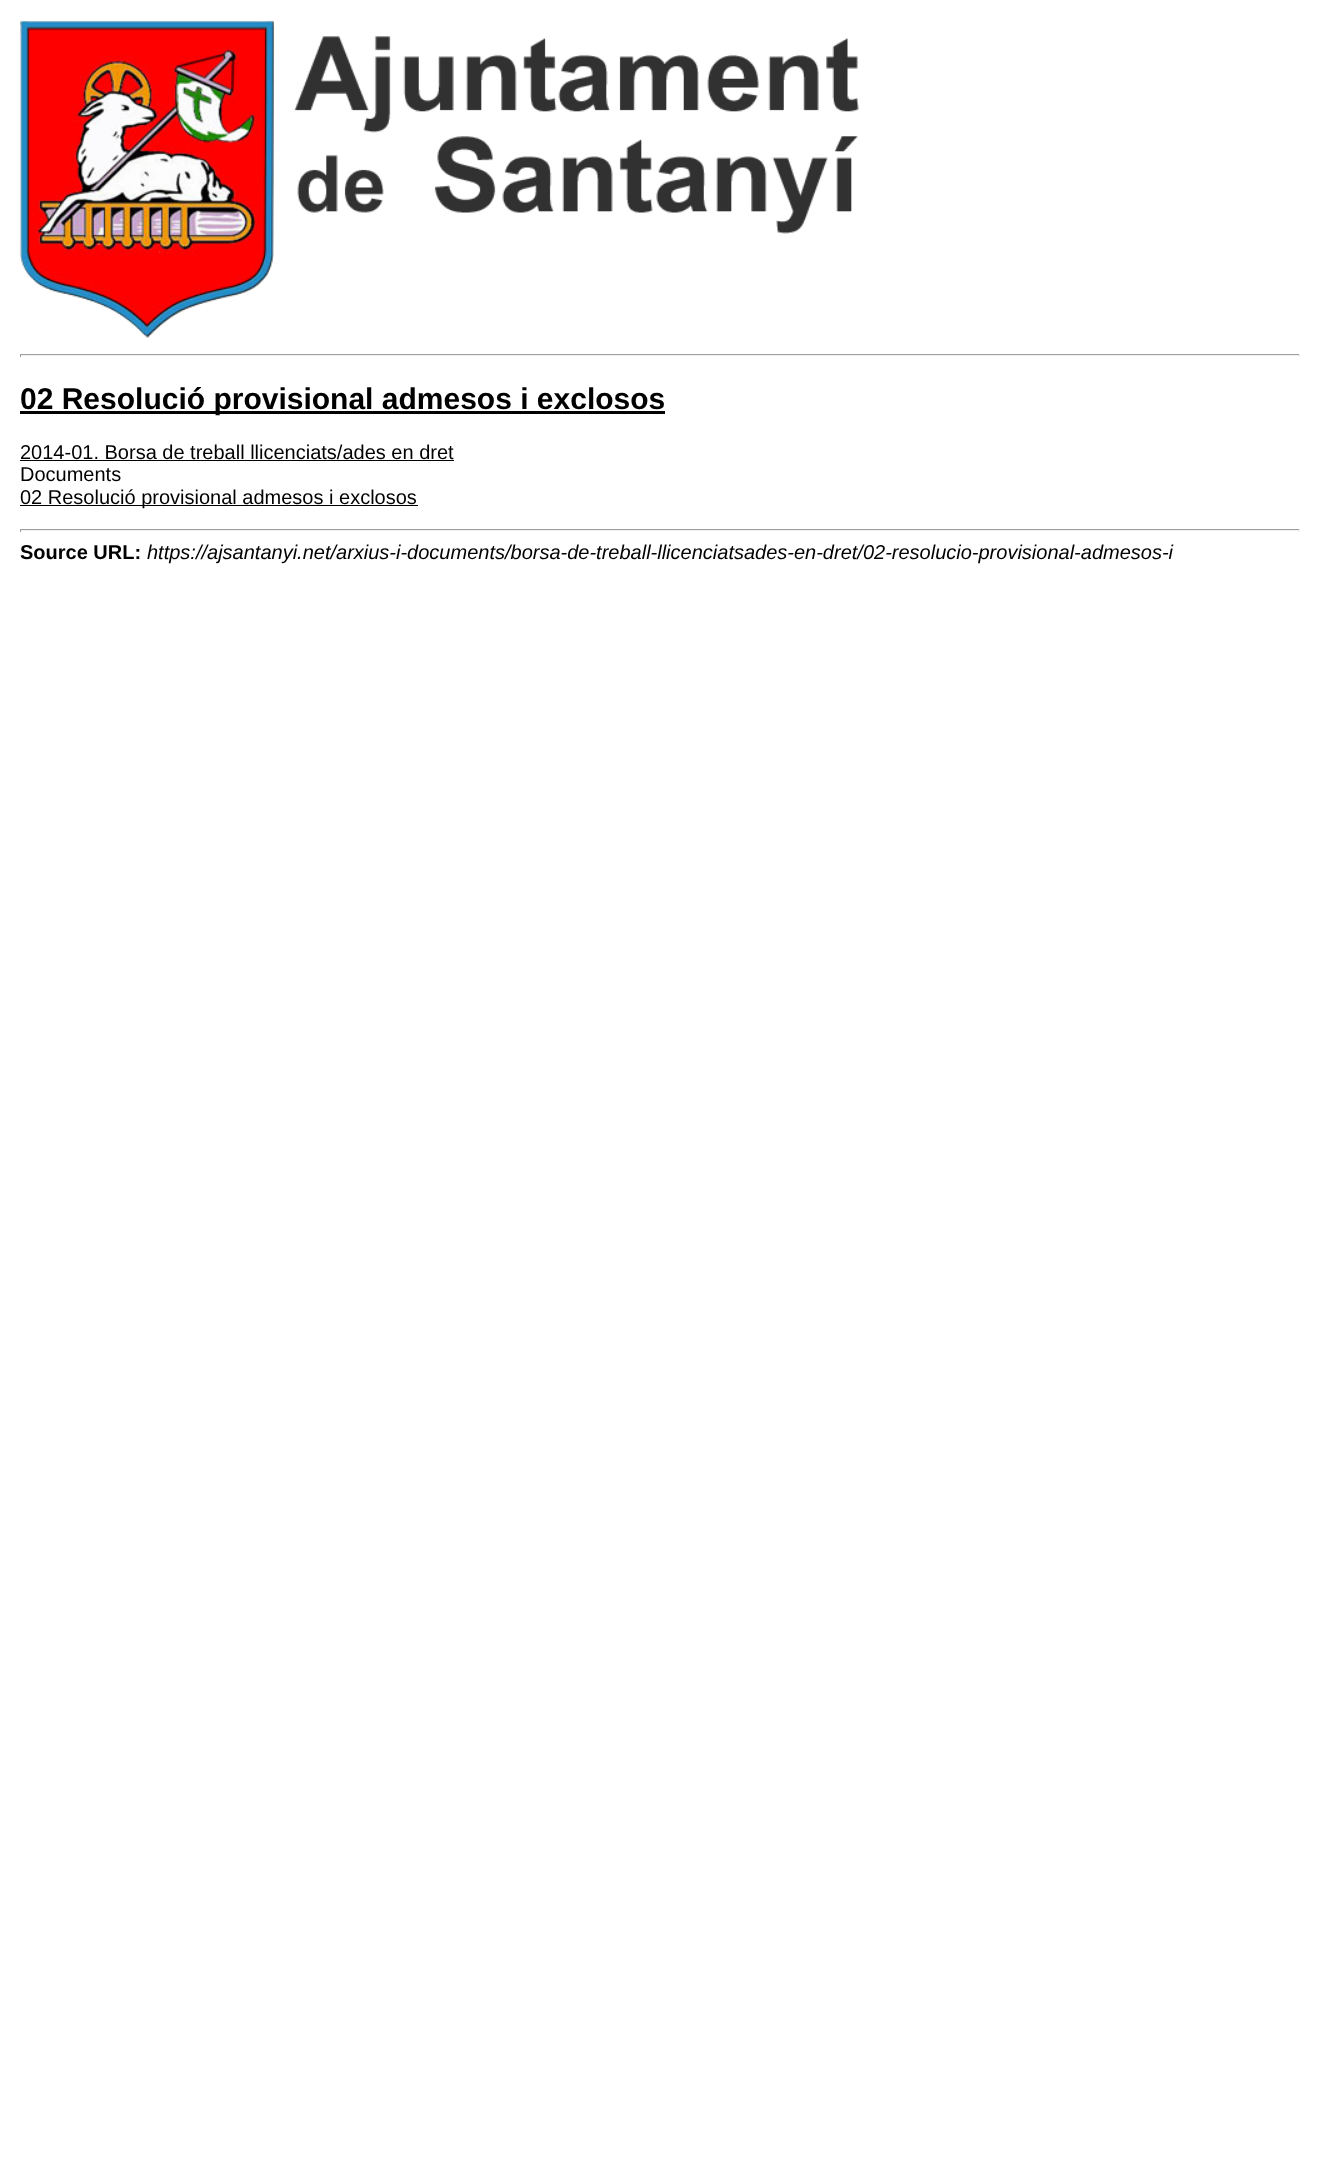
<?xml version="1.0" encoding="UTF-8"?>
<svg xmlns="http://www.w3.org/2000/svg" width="1320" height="2158">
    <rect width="100%" height="100%" fill="#FFFFFF"/>
    <image x="20" y="20" width="839" height="318" href="img_01.png"/>
    <rect x="20" y="354" width="1280" height="1" fill="#9F9F9F"/>
    <rect x="1299" y="354" width="1" height="3" fill="#EEEEEE"/>
    <rect x="20" y="355" width="1280" height="1" fill="#EEEEEE"/>
    <rect x="20" y="354" width="1" height="3" fill="#9F9F9F"/>
    <rect x="20" y="411" width="645" height="3" fill="#000000"/>
    <text x="20" y="409" font-family="Liberation Sans" font-size="30" font-weight="700" fill="#000000">02 Resolució provisional admesos i exclosos</text>
    <text x="20" y="459" font-family="Liberation Sans" font-size="20" fill="#000000">2014-01. Borsa de treball llicenciats/ades en dret</text>
    <rect x="20" y="460" width="434" height="1" fill="#000000"/>
    <text x="20" y="481" font-family="Liberation Sans" font-size="20" fill="#000000">Documents</text>
    <rect x="20" y="505" width="398" height="1" fill="#000000"/>
    <text x="20" y="504" font-family="Liberation Sans" font-size="20" fill="#000000">02 Resolució provisional admesos i exclosos</text>
    <rect x="20" y="529" width="1280" height="1" fill="#9F9F9F"/>
    <rect x="1299" y="529" width="1" height="3" fill="#EEEEEE"/>
    <rect x="20" y="530" width="1280" height="1" fill="#EEEEEE"/>
    <rect x="20" y="529" width="1" height="3" fill="#9F9F9F"/>
    <text x="20" y="559" font-family="Liberation Sans" font-size="20" font-weight="700" fill="#000000">Source URL:</text>
    <text x="147" y="559" font-family="Liberation Sans" font-size="20" font-style="italic" fill="#000000">https://ajsantanyi.net/arxius-i-documents/borsa-de-treball-llicenciatsades-en-dret/02-resolucio-provisional-admesos-i</text>
</svg>
